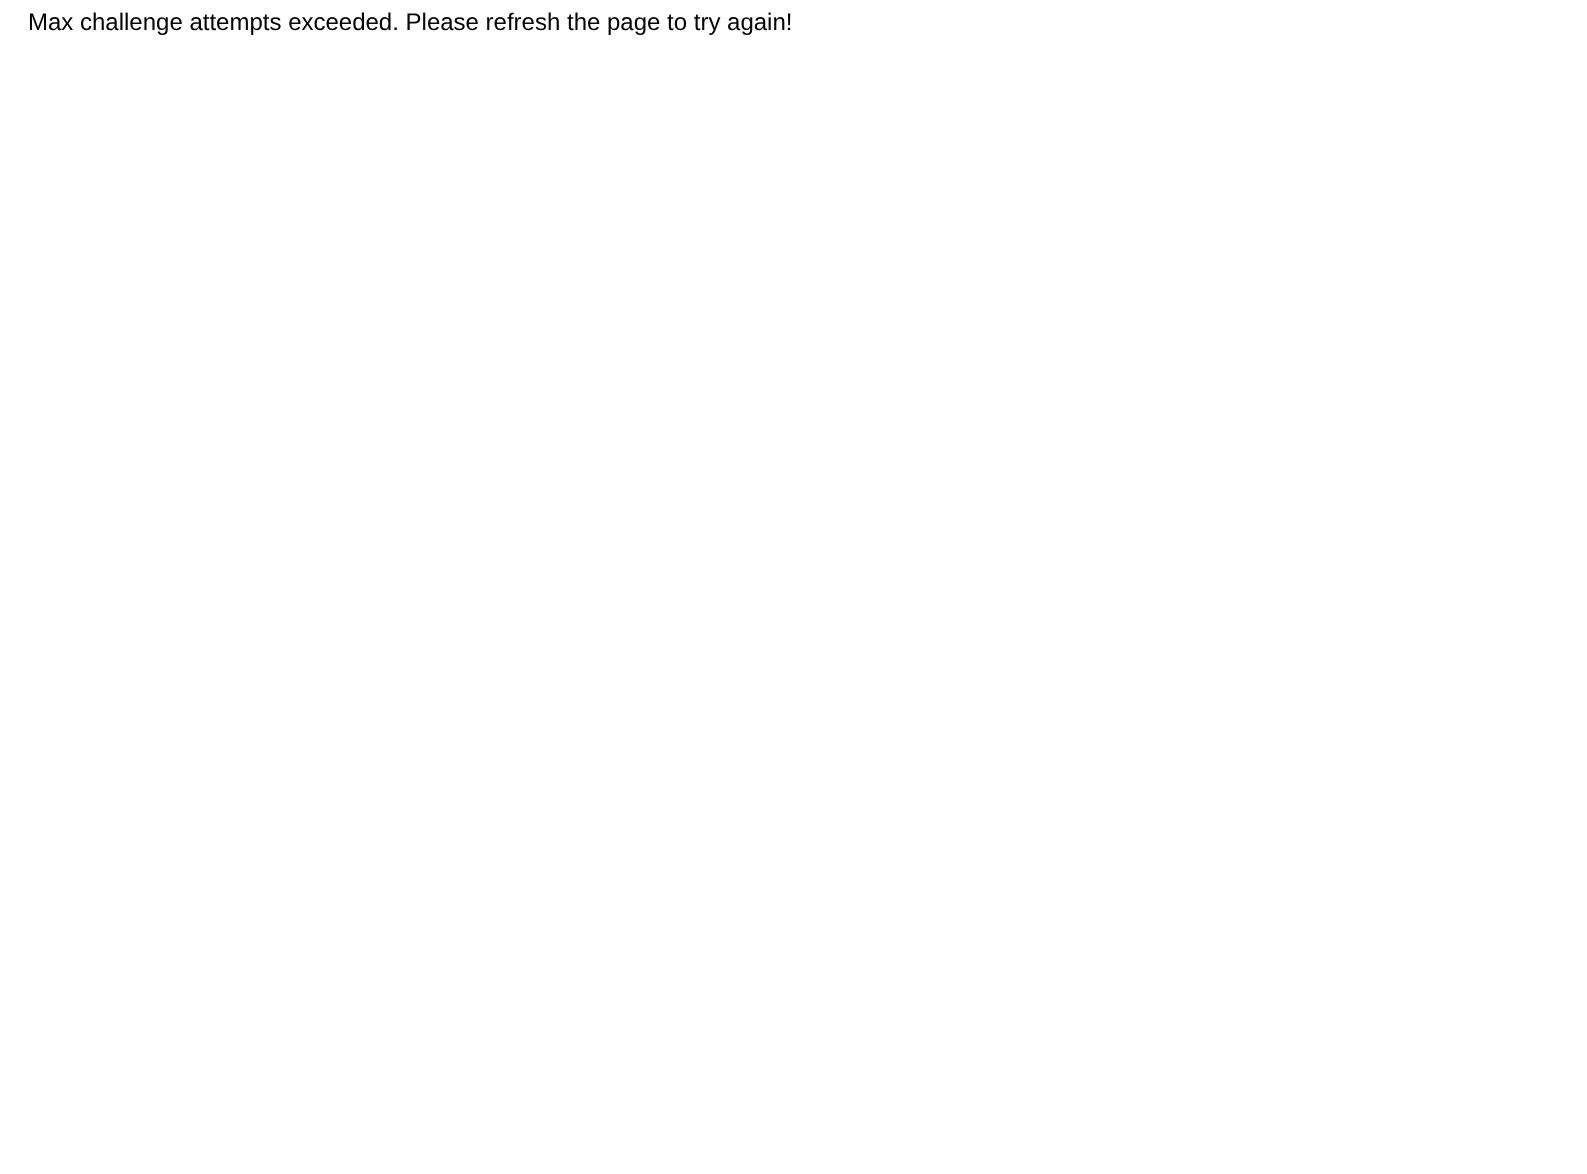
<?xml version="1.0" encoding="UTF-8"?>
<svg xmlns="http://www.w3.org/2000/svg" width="1587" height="1174">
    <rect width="100%" height="100%" fill="#FFFFFF"/>
    <text x="28" y="30" font-family="Liberation Sans" font-size="24" fill="#000000">Max challenge attempts exceeded. Please refresh the page to try again!</text>
</svg>
